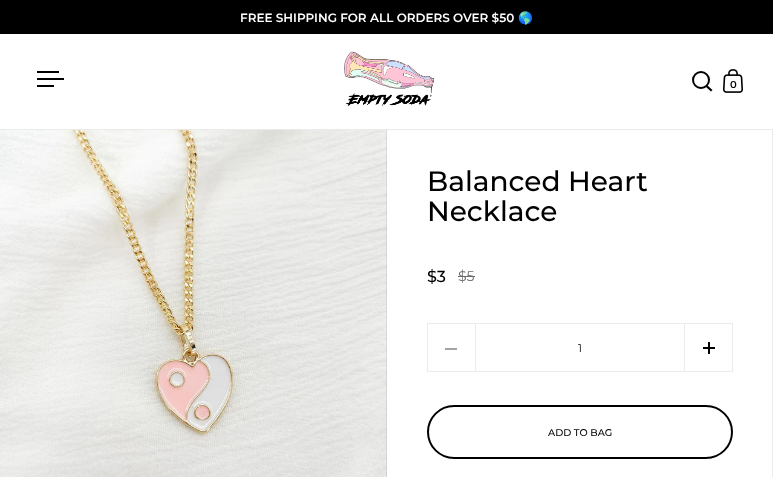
<?xml version="1.0" encoding="UTF-8"?>
<svg xmlns="http://www.w3.org/2000/svg" width="773" height="477">
    <rect width="100%" height="100%" fill="#FFFFFF"/>
    <rect x="0" y="0" width="773" height="34" fill="#000000"/>
    <text x="240" y="22" font-family="Montserrat" font-size="12" font-weight="600" fill="#FFFFFF">FREE SHIPPING FOR ALL ORDERS OVER $50</text>
    <text x="518" y="22" font-family="Noto Color Emoji" font-size="12" font-weight="700" fill="#FFFFFF">🌎</text>
    <rect x="0" y="129" width="773" height="1" fill="#EBEBEB"/>
    <rect x="37" y="71" width="22" height="2" fill="#000000"/>
    <rect x="37" y="78" width="27" height="2" fill="#000000"/>
    <rect x="37" y="85" width="17" height="2" fill="#000000"/>
    <image x="344" y="51" width="90" height="55" href="img_01.png"/>
    <circle cx="701" cy="80" r="8" fill="none" stroke="#000000" stroke-width="2"/>
    <path d="M 706 87 L 707.5 85.5 L 712.5 90 L 711 91.5 Z" fill="#000000"/>
    <image x="723" y="69" width="20" height="24" href="img_02.png"/>
    <text x="730" y="88" font-family="Montserrat" font-size="10" font-weight="600" fill="#000000">0</text>
    <image x="0" y="130" width="387" height="347" href="img_03.png"/>
    <rect x="386" y="130" width="1" height="347" fill="#000000" fill-opacity="0.08"/>
    <text font-family="Montserrat" font-size="28" font-weight="500" fill="#000000">
        <tspan x="427" y="191">Balanced Heart</tspan>
        <tspan x="427" y="221">Necklace</tspan>
    </text>
    <text x="427" y="282" font-family="Montserrat" font-size="16" font-weight="500" fill="#000000">$3</text>
    <text x="458" y="281" font-family="Montserrat" font-size="14" fill="#6B6B6B">$5</text>
    <rect x="458" y="276" width="17" height="1" fill="#6B6B6B"/>
    <rect x="427.5" y="323.5" width="48" height="48" fill="none" stroke="#EBEBEB"/>
    <rect x="445" y="348" width="12" height="2" fill="#A3A3A3"/>
    <rect x="476" y="323" width="208" height="1" fill="#EBEBEB"/>
    <rect x="476" y="371" width="208" height="1" fill="#EBEBEB"/>
    <text x="578" y="352" font-family="Montserrat" font-size="11" fill="#000000">1</text>
    <rect x="684.5" y="323.5" width="48" height="48" fill="none" stroke="#EBEBEB"/>
    <rect x="708" y="342" width="2" height="12" fill="#000000"/>
    <rect x="703" y="347" width="12" height="2" fill="#000000"/>
    <rect x="428" y="406" width="304" height="52" rx="26" fill="none" stroke="#000000" stroke-width="2"/>
    <text x="548" y="436" font-family="Montserrat" font-size="9.75" font-weight="500" fill="#000000">ADD TO BAG</text>
    <rect x="772" y="130" width="1" height="347" fill="#EBEBEB"/>
</svg>
